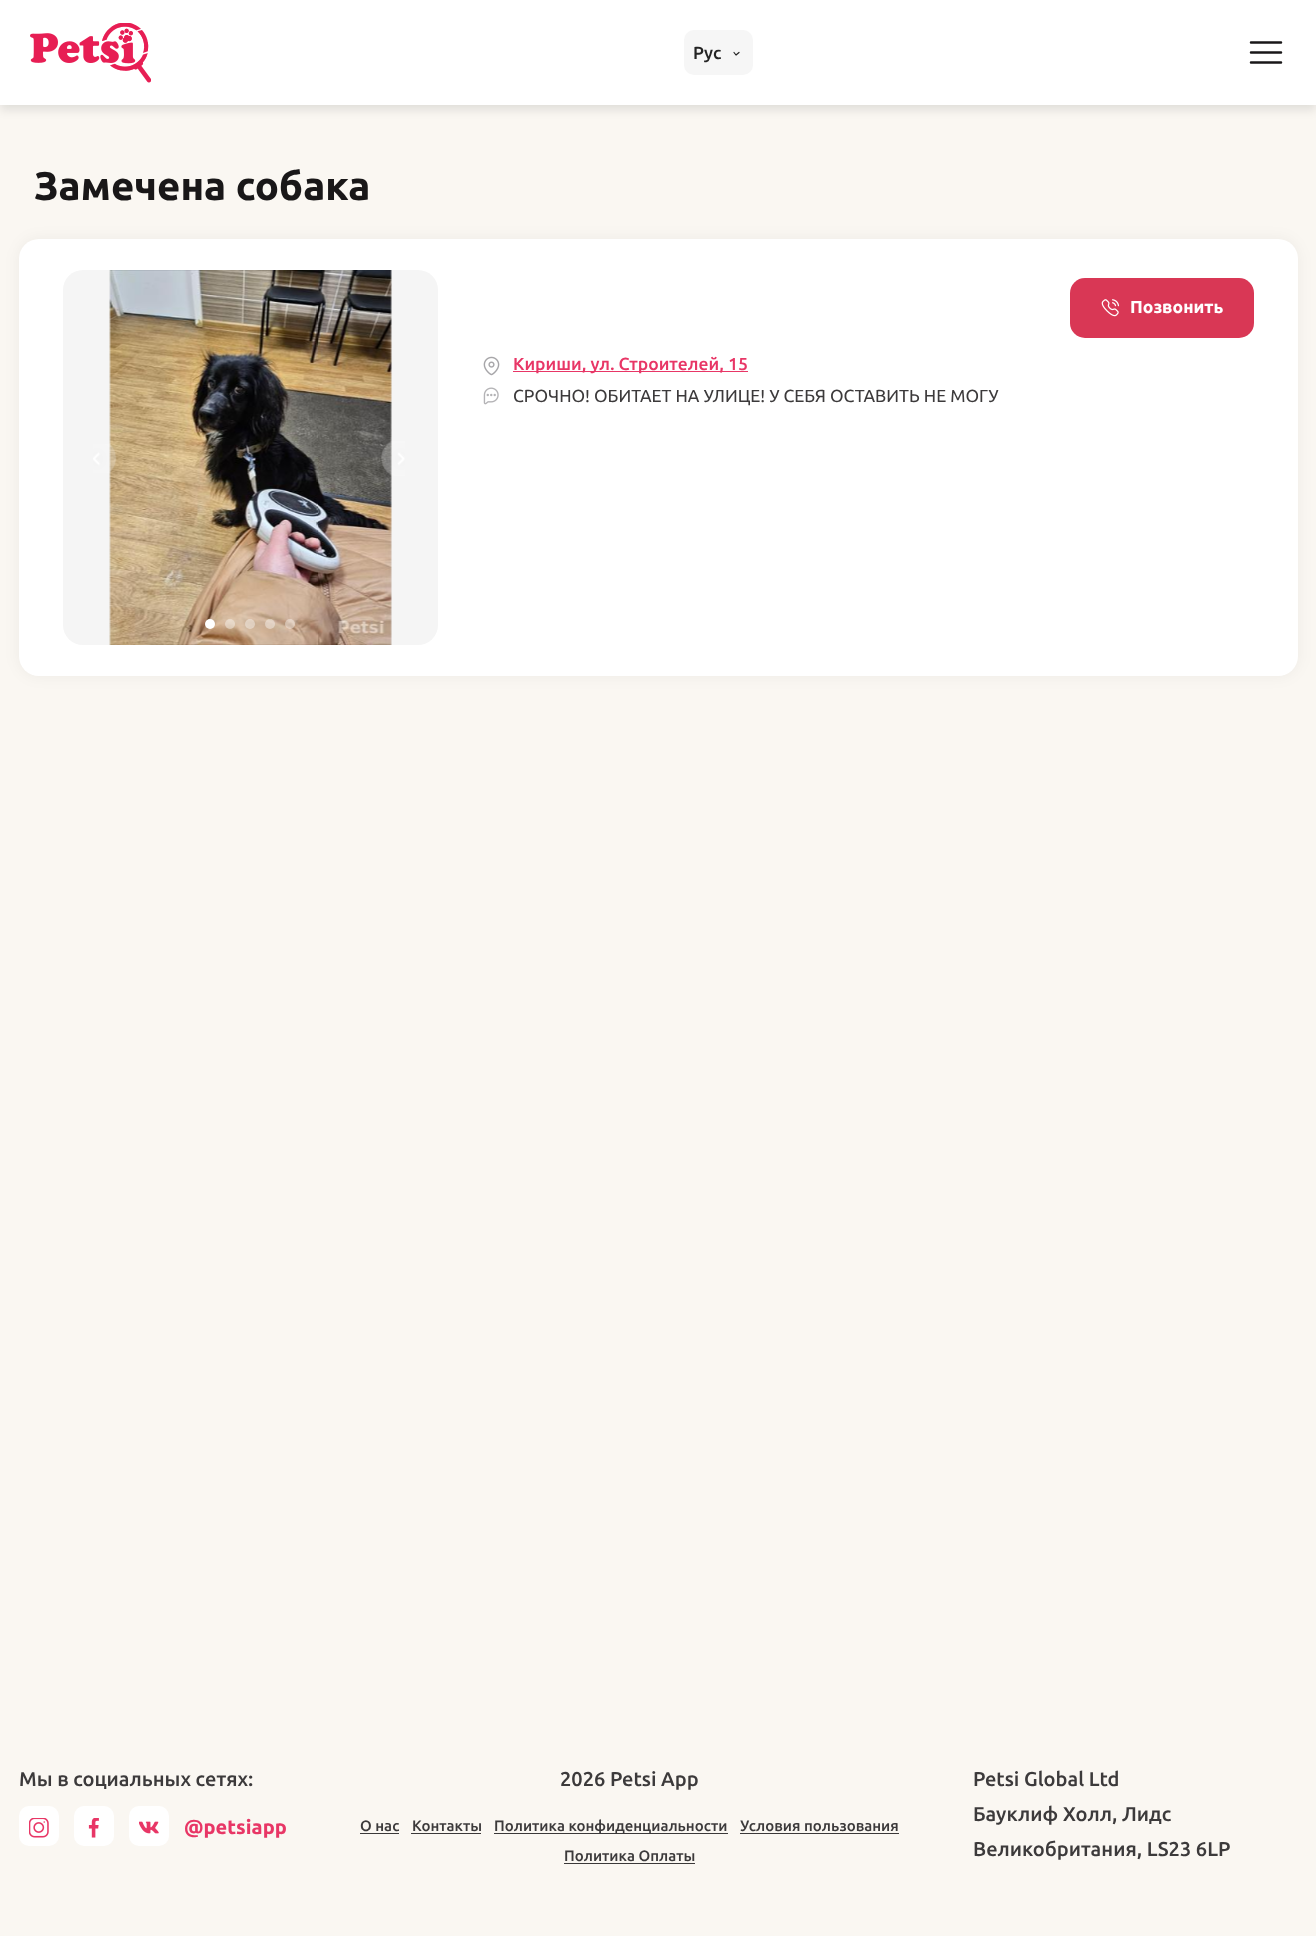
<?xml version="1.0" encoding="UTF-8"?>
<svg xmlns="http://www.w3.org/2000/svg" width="1316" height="1936">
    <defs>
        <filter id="blur1" x="-50%" y="-200%" width="200%" height="500%"><feGaussianBlur stdDeviation="5"/></filter>
        <filter id="blur2" x="-50%" y="-200%" width="200%" height="500%"><feGaussianBlur stdDeviation="7.5"/></filter>
    </defs>
    <rect width="100%" height="100%" fill="#FAF7F2"/>
    <rect x="0" y="5" width="1316" height="105" fill="#000000" fill-opacity="0.1" filter="url(#blur1)"/>
    <rect x="0" y="0" width="1316" height="105" fill="#FFFFFF"/>
    <image x="30" y="23" width="121" height="60" href="img_01.png"/>
    <rect x="684" y="30" width="69" height="45" rx="10" fill="#F6F6F6"/>
    <text x="693" y="59" font-family="Ubuntu" font-size="17.5" font-weight="500" fill="#242424">Рус</text>
    <path d="M 734 52.5 L 736 55 L 739 52.5" fill="none" stroke="#242424" stroke-width="1.2" stroke-linecap="round" stroke-linejoin="round"/>
    <path d="M 1251 52.5 H 1281 M 1251 42.5 H 1281 M 1251 62.5 H 1281" fill="none" stroke="#191718" stroke-width="2.5" stroke-linecap="round" stroke-linejoin="round"/>
    <text x="34" y="200" font-family="Ubuntu" font-size="40" font-weight="700" fill="#191718">Замечена собака</text>
    <rect x="19" y="239" width="1279" height="437" rx="20" fill="#161A22" fill-opacity="0.05" filter="url(#blur2)"/>
    <rect x="19" y="239" width="1279" height="437" rx="20" fill="#FFFFFF"/>
    <rect x="63" y="270" width="375" height="375" rx="20" fill="#F5F5F5"/>
    <image x="109" y="270" width="283" height="375" href="img_02.png"/>
    <image x="93" y="444" width="24" height="29" href="img_03.png"/>
    <image x="381" y="441" width="24" height="35" href="img_04.png"/>
    <circle cx="210" cy="624" r="5" fill="#FFFFFF"/>
    <circle cx="230" cy="624" r="5" fill="#FFFFFF" fill-opacity="0.4"/>
    <circle cx="250" cy="624" r="5" fill="#FFFFFF" fill-opacity="0.4"/>
    <circle cx="270" cy="624" r="5" fill="#FFFFFF" fill-opacity="0.4"/>
    <circle cx="290" cy="624" r="5" fill="#FFFFFF" fill-opacity="0.4"/>
    <rect x="1070" y="278" width="184" height="60" rx="15" fill="#D93755"/>
    <image x="1101" y="299" width="19" height="18" href="img_05.png"/>
    <text x="1130" y="313" font-family="Ubuntu" font-size="17.5" font-weight="700" fill="#FFFFFF">Позвонить</text>
    <image x="483" y="356" width="17" height="20" href="img_06.png"/>
    <rect x="513" y="371" width="235" height="1" fill="#E83666"/>
    <text x="513" y="370" font-family="Ubuntu" font-size="17.5" font-weight="500" fill="#E83666">Кириши, ул. Строителей, 15</text>
    <image x="483" y="387" width="16" height="18" href="img_07.png"/>
    <text x="513" y="402" font-family="Ubuntu" font-size="17.5" fill="#3C3A3B">СРОЧНО! ОБИТАЕТ НА УЛИЦЕ! У СЕБЯ ОСТАВИТЬ НЕ МОГУ</text>
    <text x="19" y="1786" font-family="Ubuntu" font-size="20" font-weight="500" fill="#3C3A3B">Мы в социальных сетях:</text>
    <rect x="19" y="1806" width="40" height="40" rx="10" fill="#FFFFFF"/>
    <image x="29" y="1818" width="20" height="20" href="img_08.png"/>
    <rect x="74" y="1806" width="40" height="40" rx="10" fill="#FFFFFF"/>
    <image x="88" y="1818" width="11" height="20" href="img_09.png"/>
    <rect x="129" y="1806" width="40" height="40" rx="10" fill="#FFFFFF"/>
    <image x="139" y="1821" width="20" height="13" href="img_10.png"/>
    <text x="184" y="1834" font-family="Ubuntu" font-size="20" font-weight="700" fill="#E83666">@petsiapp</text>
    <text x="560" y="1786" font-family="Ubuntu" font-size="20" font-weight="500" fill="#3C3A3B">2026 Petsi App</text>
    <text x="360" y="1831" font-family="Ubuntu" font-size="15" font-weight="500" fill="#3C3A3B">О нас</text>
    <rect x="360" y="1833" width="39" height="1" fill="#3B3939"/>
    <text x="412" y="1831" font-family="Ubuntu" font-size="15" font-weight="500" fill="#3C3A3B">Контакты</text>
    <rect x="411" y="1833" width="70" height="1" fill="#3B3939"/>
    <rect x="494" y="1833" width="234" height="1" fill="#3B3939"/>
    <text x="494" y="1831" font-family="Ubuntu" font-size="15" font-weight="500" fill="#3C3A3B">Политика конфиденциальности</text>
    <text x="740" y="1831" font-family="Ubuntu" font-size="15" font-weight="500" fill="#3C3A3B">Условия пользования</text>
    <rect x="740" y="1833" width="159" height="1" fill="#3B3939"/>
    <text x="564" y="1861" font-family="Ubuntu" font-size="15" font-weight="500" fill="#3C3A3B">Политика Оплаты</text>
    <rect x="564" y="1863" width="131" height="1" fill="#3B3939"/>
    <text font-family="Ubuntu" font-size="20" font-weight="500" fill="#3C3A3B">
        <tspan x="973" y="1786">Petsi Global Ltd</tspan>
        <tspan x="973" y="1821">Бауклиф Холл, Лидс</tspan>
        <tspan x="973" y="1856">Великобритания, LS23 6LP</tspan>
    </text>
</svg>
